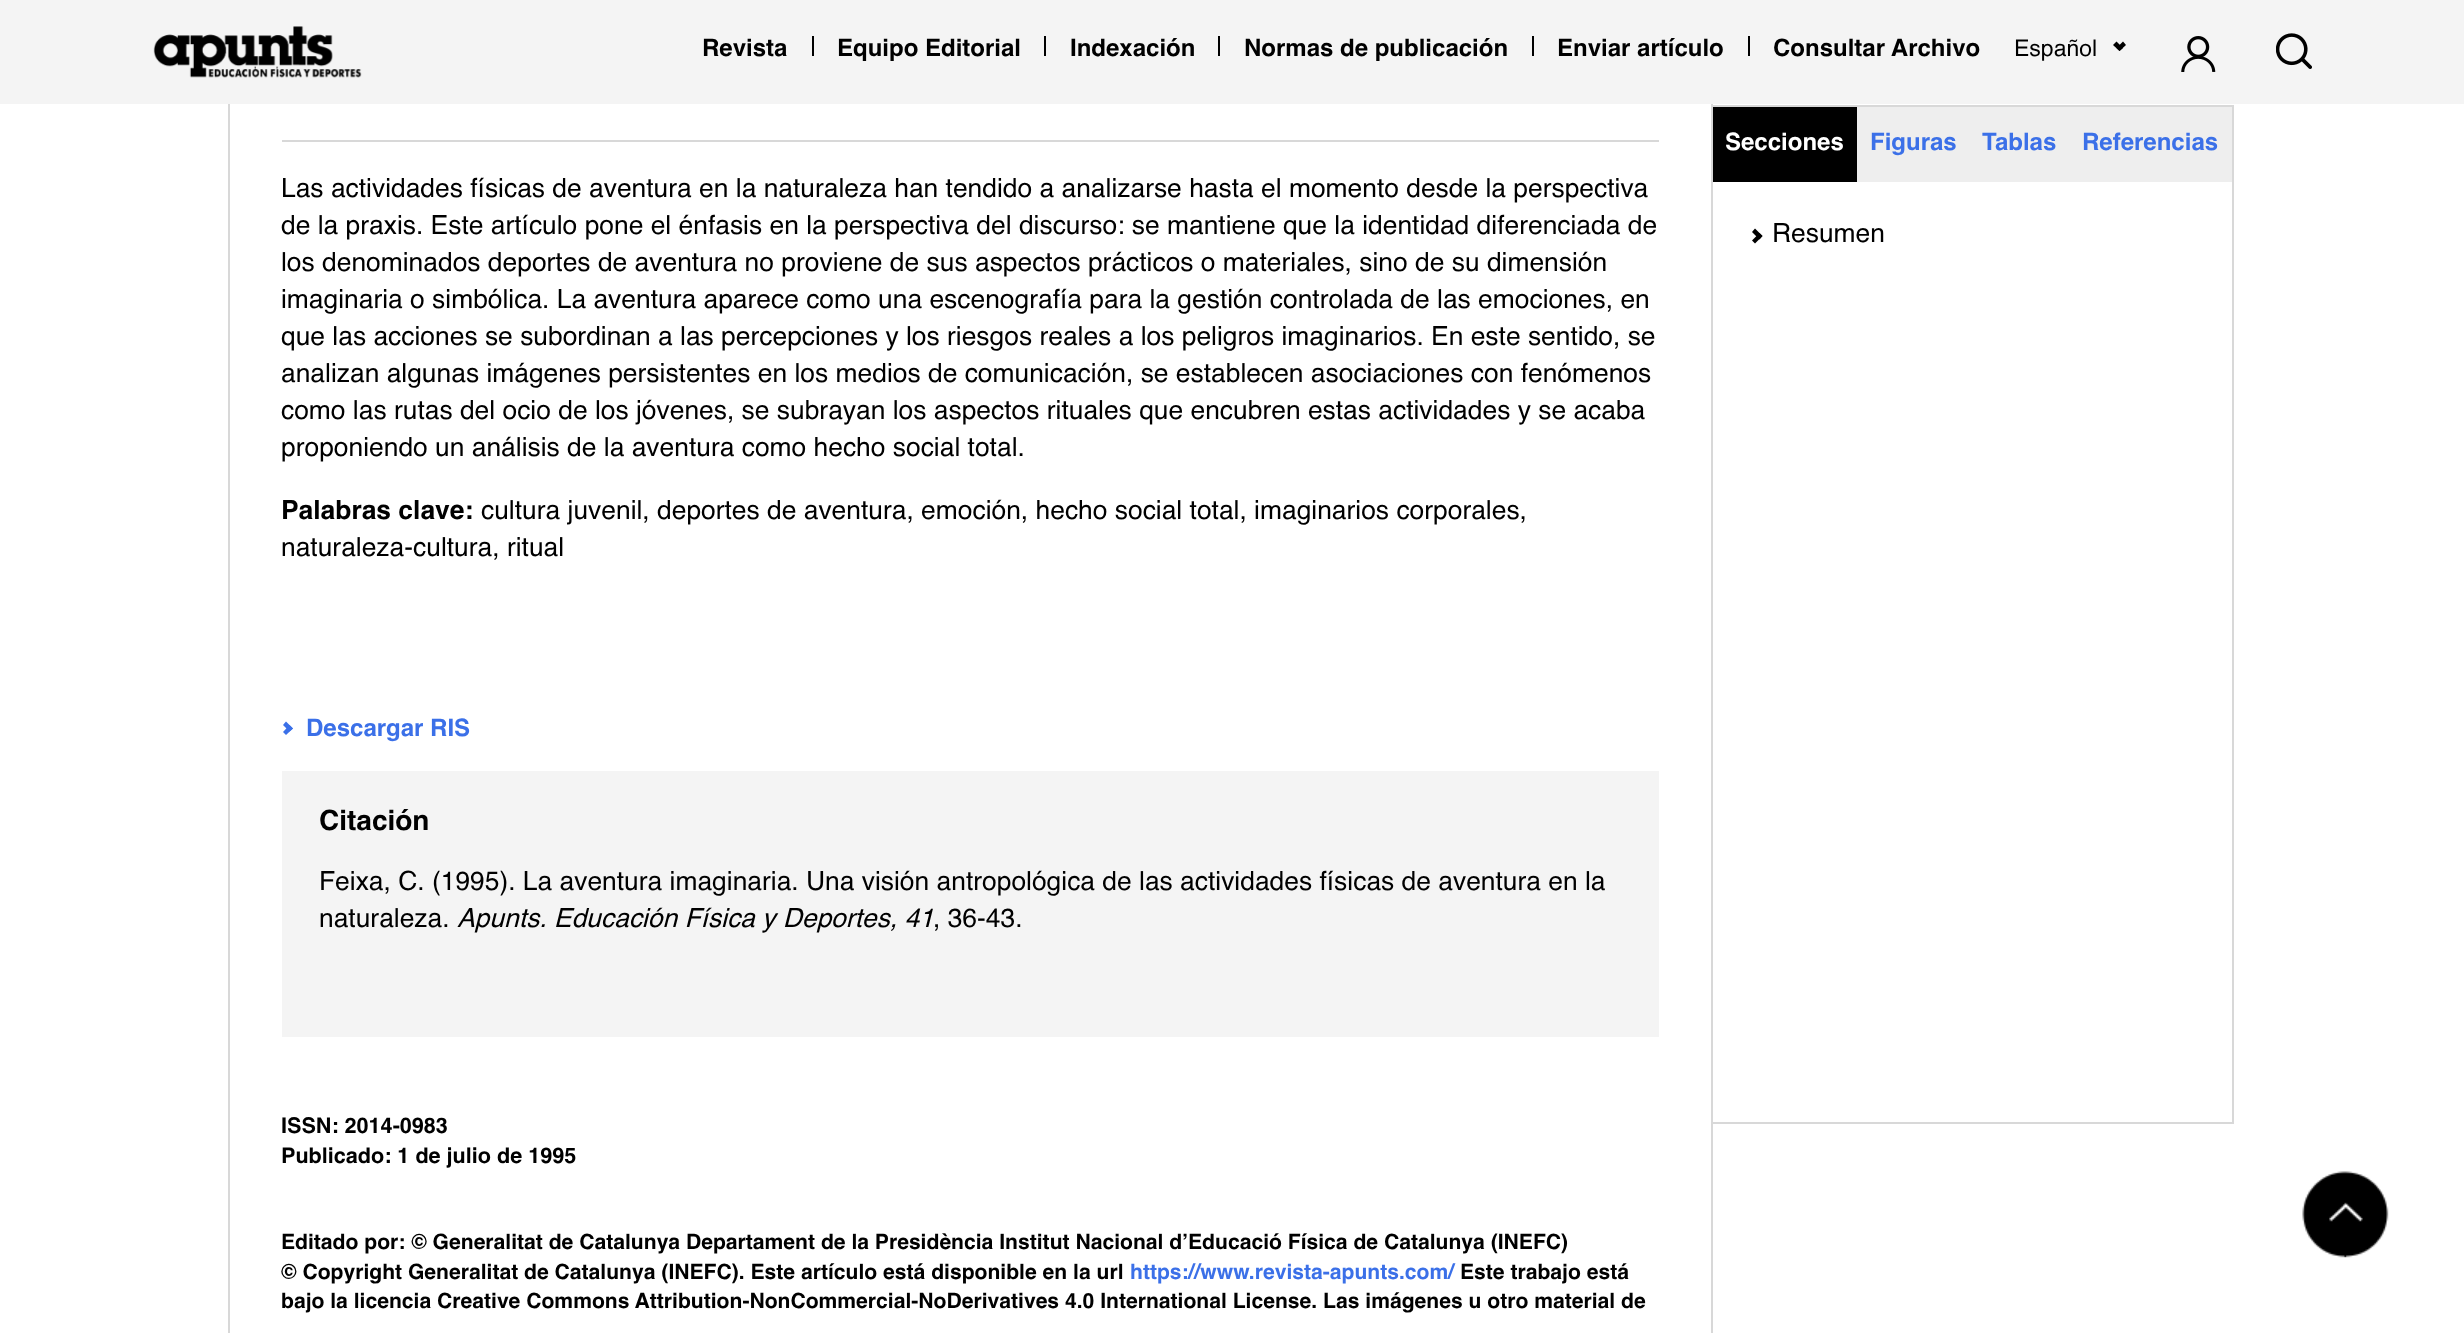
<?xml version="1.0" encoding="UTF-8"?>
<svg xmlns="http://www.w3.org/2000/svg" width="2464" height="1333">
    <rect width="100%" height="100%" fill="#FFFFFF"/>
    <rect x="229" y="-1" width="1483" height="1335" fill="none" stroke="#D8D8D8" stroke-width="2"/>
    <rect x="0" y="0" width="2464" height="104" fill="#F4F4F4"/>
    <image x="153" y="26" width="209" height="52" href="img_01.png"/>
    <text x="702" y="56" font-family="Helvetica" font-size="24" font-weight="700" fill="#000000">Revista</text>
    <rect x="812" y="36" width="2" height="20" fill="#000000"/>
    <text x="837" y="56" font-family="Helvetica" font-size="24" font-weight="700" fill="#000000">Equipo Editorial</text>
    <rect x="1044" y="36" width="2" height="20" fill="#000000"/>
    <text x="1070" y="56" font-family="Helvetica" font-size="24" font-weight="700" fill="#000000">Indexación</text>
    <rect x="1218" y="36" width="2" height="20" fill="#000000"/>
    <text x="1244" y="56" font-family="Helvetica" font-size="24" font-weight="700" fill="#000000">Normas de publicación</text>
    <rect x="1532" y="36" width="2" height="20" fill="#000000"/>
    <text x="1557" y="56" font-family="Helvetica" font-size="24" font-weight="700" fill="#000000">Enviar artículo</text>
    <rect x="1748" y="36" width="2" height="20" fill="#000000"/>
    <text x="1773" y="56" font-family="Helvetica" font-size="24" font-weight="700" fill="#000000">Consultar Archivo</text>
    <text x="2014" y="56" font-family="Helvetica" font-size="23" fill="#000000">Español</text>
    <path d="M 2126 45 L 2119.5 51 L 2116.5 48 L 2123 41.5 Z" fill="#000000"/>
    <path d="M 2123 48 L 2119.5 51 L 2113 45 L 2116.5 41.5 Z" fill="#000000"/>
    <image x="2181" y="36" width="35" height="36" href="img_02.png"/>
    <image x="2276" y="33" width="36" height="36" href="img_03.png"/>
    <rect x="282" y="140" width="1377" height="2" fill="#D8D8D8"/>
    <text font-family="Helvetica" font-size="26.4" fill="#000000">
        <tspan x="281" y="197">Las actividades físicas de aventura en la naturaleza han tendido a analizarse hasta el momento desde la perspectiva</tspan>
        <tspan x="281" y="234">de la praxis. Este artículo pone el énfasis en la perspectiva del discurso: se mantiene que la identidad diferenciada de</tspan>
        <tspan x="281" y="271">los denominados deportes de aventura no proviene de sus aspectos prácticos o materiales, sino de su dimensión</tspan>
        <tspan x="281" y="308">imaginaria o simbólica. La aventura aparece como una escenografía para la gestión controlada de las emociones, en</tspan>
        <tspan x="281" y="345">que las acciones se subordinan a las percepciones y los riesgos reales a los peligros imaginarios. En este sentido, se</tspan>
        <tspan x="281" y="382">analizan algunas imágenes persistentes en los medios de comunicación, se establecen asociaciones con fenómenos</tspan>
        <tspan x="281" y="419">como las rutas del ocio de los jóvenes, se subrayan los aspectos rituales que encubren estas actividades y se acaba</tspan>
        <tspan x="281" y="456">proponiendo un análisis de la aventura como hecho social total.</tspan>
    </text>
    <text x="281" y="519" font-family="Helvetica" font-size="26.4" font-weight="700" fill="#000000">Palabras clave:</text>
    <text x="481" y="519" font-family="Helvetica" font-size="26.4" fill="#000000">cultura juvenil, deportes de aventura, emoción, hecho social total, imaginarios corporales,</text>
    <text x="281" y="556" font-family="Helvetica" font-size="26.4" fill="#000000">naturaleza-cultura, ritual</text>
    <path d="M 286 721.5 L 293 728.5 L 289.5 731.5 L 283 725 Z" fill="#3B70E8"/>
    <path d="M 289.5 725 L 293 728.5 L 286 735 L 283 732 Z" fill="#3B70E8"/>
    <text x="306" y="736" font-family="Helvetica" font-size="24" font-weight="700" fill="#3B70E8">Descargar RIS</text>
    <rect x="282" y="771" width="1377" height="266" fill="#F4F4F4"/>
    <text x="319" y="830" font-family="Helvetica" font-size="28" font-weight="700" fill="#000000">Citación</text>
    <text font-family="Helvetica" font-size="26.4" fill="#000000">
        <tspan x="319" y="890">Feixa, C. (1995). La aventura imaginaria. Una visión antropológica de las actividades físicas de aventura en la</tspan>
        <tspan x="319" y="927">naturaleza.</tspan>
    </text>
    <text x="457" y="927" font-family="Helvetica" font-size="26.4" font-style="italic" fill="#000000">Apunts. Educación Física y Deportes, 41</text>
    <text x="933" y="927" font-family="Helvetica" font-size="26.4" fill="#000000">, 36-43.</text>
    <text font-family="Helvetica" font-size="21.6" font-weight="700" fill="#000000">
        <tspan x="281" y="1133">ISSN: 2014-0983</tspan>
        <tspan x="281" y="1163">Publicado: 1 de julio de 1995</tspan>
    </text>
    <text font-family="Helvetica" font-size="21.12" font-weight="700" fill="#000000">
        <tspan x="281" y="1249">Editado por: © Generalitat de Catalunya Departament de la Presidència Institut Nacional d’Educació Física de Catalunya (INEFC)</tspan>
        <tspan x="281" y="1279">© Copyright Generalitat de Catalunya (INEFC). Este artículo está disponible en la url</tspan>
    </text>
    <text x="1130" y="1279" font-family="Helvetica" font-size="21.12" font-weight="700" fill="#3B70E8">https://www.revista-apunts.com/</text>
    <text x="1460" y="1279" font-family="Helvetica" font-size="21.12" font-weight="700" fill="#000000">Este trabajo está</text>
    <text x="281" y="1308" font-family="Helvetica" font-size="21.12" font-weight="700" fill="#000000">bajo la licencia Creative Commons Attribution-NonCommercial-NoDerivatives 4.0 International License. Las imágenes u otro material de</text>
    <rect x="1713" y="105" width="521" height="2" fill="#D8D8D8"/>
    <rect x="2232" y="105" width="2" height="1019" fill="#D8D8D8"/>
    <rect x="1713" y="1122" width="521" height="2" fill="#D8D8D8"/>
    <rect x="1713" y="107" width="144" height="75" fill="#000000"/>
    <text x="1725" y="150" font-family="Helvetica" font-size="24" font-weight="700" fill="#FFFFFF">Secciones</text>
    <rect x="1857" y="107" width="375" height="75" fill="#EEEEEE"/>
    <text x="1870" y="150" font-family="Helvetica" font-size="24" font-weight="700" fill="#3B70E8">Figuras</text>
    <text x="1982" y="150" font-family="Helvetica" font-size="24" font-weight="700" fill="#3B70E8">Tablas</text>
    <text x="2082" y="150" font-family="Helvetica" font-size="24" font-weight="700" fill="#3B70E8">Referencias</text>
    <path d="M 1755 228.5 L 1762.5 236 L 1759.5 239.5 L 1752 232 Z" fill="#000000"/>
    <path d="M 1759.5 233 L 1762.5 236 L 1755 243.5 L 1752 240.5 Z" fill="#000000"/>
    <text x="1772" y="242" font-family="Helvetica" font-size="26.4" fill="#000000">Resumen</text>
    <image x="2302" y="1171" width="87" height="87" href="img_04.png"/>
</svg>
